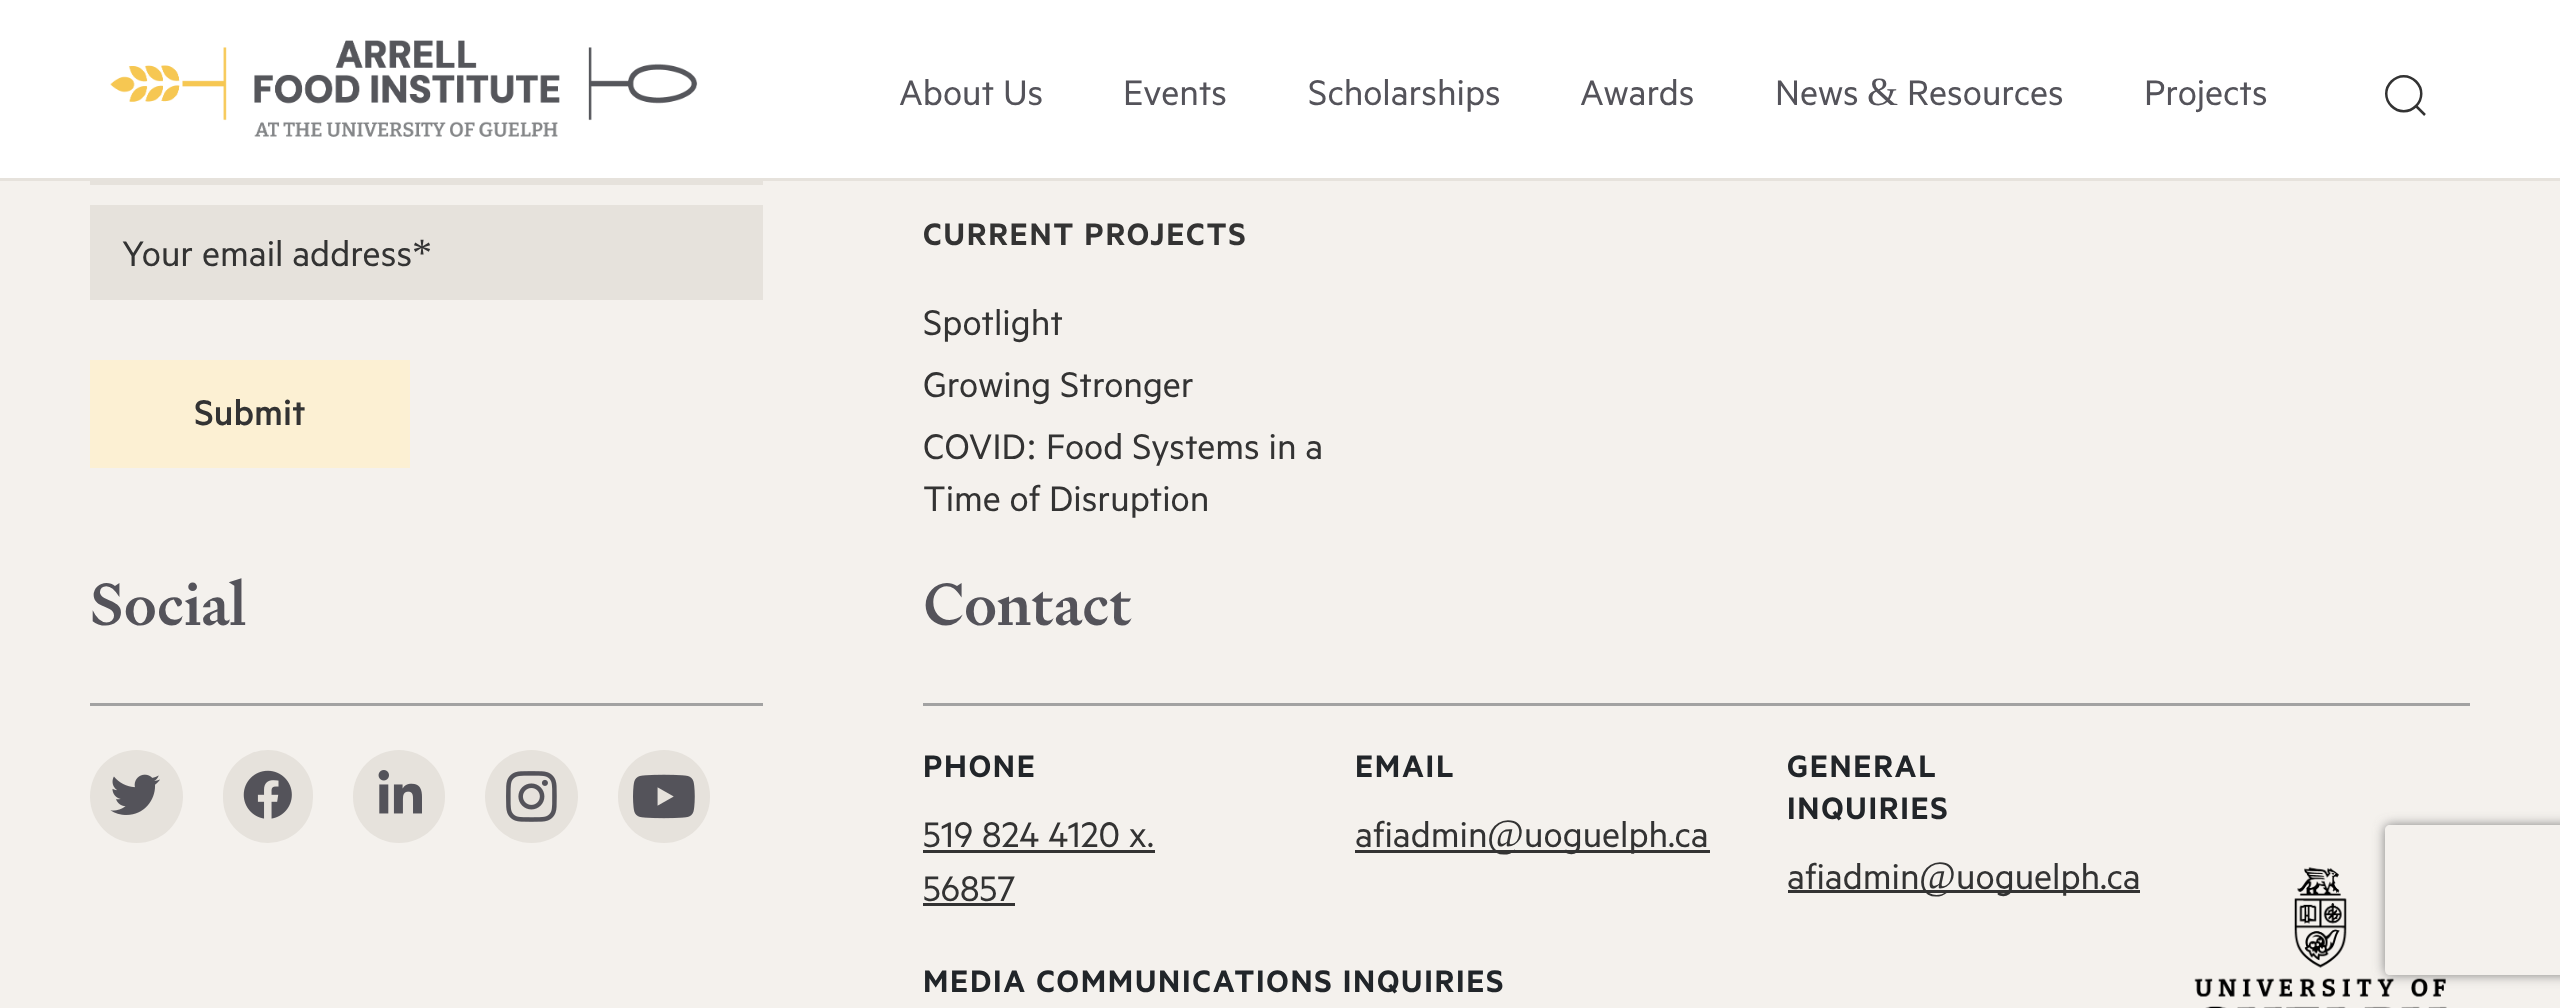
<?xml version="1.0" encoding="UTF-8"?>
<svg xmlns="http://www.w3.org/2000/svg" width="2560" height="1008">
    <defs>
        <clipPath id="clip1"><path d="M 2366 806 H 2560 V 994 H 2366 Z M 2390 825 H 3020 C 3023 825 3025 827 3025 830 V 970 C 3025 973 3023 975 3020 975 H 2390 C 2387 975 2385 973 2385 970 V 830 C 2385 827 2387 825 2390 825 Z" clip-rule="evenodd"/></clipPath>
        <filter id="blur1" x="-50%" y="-200%" width="200%" height="500%"><feGaussianBlur stdDeviation="6"/></filter>
    </defs>
    <rect width="100%" height="100%" fill="#F4F1ED"/>
    <rect x="0" y="0" width="2560" height="178" fill="#FFFFFF"/>
    <rect x="0" y="178" width="2560" height="3" fill="#E6E2DC"/>
    <image x="110" y="40" width="588" height="97" href="img_01.png"/>
    <text x="899" y="105" font-family="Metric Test" font-size="40" fill="#54535A">About Us</text>
    <text x="1123" y="105" font-family="Metric Test" font-size="40" fill="#54535A">Events</text>
    <text x="1308" y="105" font-family="Metric Test" font-size="40" fill="#54535A">Scholarships</text>
    <text x="1580" y="105" font-family="Metric Test" font-size="40" fill="#54535A">Awards</text>
    <text x="1775" y="105" font-family="Metric Test" font-size="40" fill="#54535A">News</text>
    <text x="1867" y="105" font-family="Liberation Serif" font-size="40" fill="#54535A">&amp;</text>
    <text x="1907" y="105" font-family="Metric Test" font-size="40" fill="#54535A">Resources</text>
    <text x="2144" y="105" font-family="Metric Test" font-size="40" fill="#54535A">Projects</text>
    <path d="M 2391.5 81.5 C 2398.5 74.5 2409 74.5 2416 81.5 C 2423 88.5 2423 99 2416 106 C 2409 113 2398.5 113 2391.5 106 C 2384.5 99 2384.5 88.5 2391.5 81.5 Z M 2425 115 L 2416 106" fill="none" stroke="#333333" stroke-width="2.5"/>
    <rect x="90" y="181" width="673" height="4" fill="#E6E2DC"/>
    <rect x="90" y="205" width="673" height="95" fill="#E6E2DC"/>
    <text x="122" y="266" font-family="Metric Test" font-size="40" fill="#333333">Your email address</text>
    <text x="412" y="266" font-family="Liberation Serif" font-size="40" fill="#333333">*</text>
    <g clip-path="url(#clip1)">
        <rect x="2385" y="825" width="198" height="150" rx="5" fill="#808080" filter="url(#blur1)"/>
    </g>
    <rect x="90" y="360" width="320" height="108" fill="#FCF0D3"/>
    <text x="194" y="425" font-family="Metric Test" font-size="40" font-weight="500" fill="#333333">Submit</text>
    <text x="923" y="245" font-family="Metric Test" font-size="35" font-weight="600" letter-spacing="1.75" fill="#333333">CURRENT PROJECTS</text>
    <text font-family="Metric Test" font-size="40" fill="#333333">
        <tspan x="923" y="335">Spotlight</tspan>
        <tspan x="923" y="397">Growing Stronger</tspan>
        <tspan x="923" y="459">COVID</tspan>
    </text>
    <text x="1026" y="459" font-family="Liberation Serif" font-size="40" fill="#333333">:</text>
    <text x="1046" y="459" font-family="Metric Test" font-size="40" fill="#333333">Food Systems in a</text>
    <text x="923" y="511" font-family="Metric Test" font-size="40" fill="#333333">Time of Disruption</text>
    <text x="90" y="625" font-family="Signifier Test" font-size="60" font-weight="500" fill="#54535A">Social</text>
    <rect x="90" y="703" width="673" height="3" fill="#A2A2A2"/>
    <circle cx="136.5" cy="796.5" r="46.5" fill="#E6E2DC"/>
    <image x="110" y="774" width="50" height="41" href="img_02.png"/>
    <rect x="223" y="750" width="90" height="93" rx="45" fill="#E6E2DC"/>
    <image x="243" y="770" width="49" height="49" href="img_03.png"/>
    <rect x="353" y="750" width="92" height="93" rx="46" fill="#E6E2DC"/>
    <image x="378" y="770" width="44" height="44" href="img_04.png"/>
    <circle cx="531.5" cy="796.5" r="46.5" fill="#E6E2DC"/>
    <image x="506" y="771" width="51" height="51" href="img_05.png"/>
    <rect x="618" y="750" width="92" height="93" rx="46" fill="#E6E2DC"/>
    <image x="633" y="774" width="62" height="45" href="img_06.png"/>
    <text x="923" y="625" font-family="Signifier Test" font-size="60" font-weight="500" fill="#54535A">Contact</text>
    <rect x="923" y="703" width="1547" height="3" fill="#A2A2A2"/>
    <text x="923" y="777" font-family="Metric Test" font-size="35" font-weight="600" letter-spacing="1.75" fill="#212529">PHONE</text>
    <text x="923" y="847" font-family="Metric Test" font-size="40" fill="#333333">519 824 4120 x.</text>
    <rect x="923" y="850" width="232" height="3" fill="#333333"/>
    <text x="923" y="901" font-family="Metric Test" font-size="40" fill="#333333">56857</text>
    <rect x="923" y="903" width="92" height="3" fill="#333333"/>
    <text x="1355" y="777" font-family="Metric Test" font-size="35" font-weight="600" letter-spacing="1.75" fill="#212529">EMAIL</text>
    <text x="1355" y="847" font-family="Metric Test" font-size="40" fill="#333333">afiadmin</text>
    <rect x="1355" y="850" width="355" height="3" fill="#333333"/>
    <text x="1487" y="847" font-family="Liberation Serif" font-size="40" fill="#333333">@</text>
    <text x="1524" y="847" font-family="Metric Test" font-size="40" fill="#333333">uoguelph.ca</text>
    <text font-family="Metric Test" font-size="35" font-weight="600" letter-spacing="1.75" fill="#212529">
        <tspan x="1787" y="777">GENERAL</tspan>
        <tspan x="1787" y="819">INQUIRIES</tspan>
    </text>
    <text x="1787" y="889" font-family="Metric Test" font-size="40" fill="#333333">afiadmin</text>
    <rect x="1788" y="890" width="352" height="3" fill="#333333"/>
    <text x="1919" y="889" font-family="Liberation Serif" font-size="40" fill="#333333">@</text>
    <text x="1956" y="889" font-family="Metric Test" font-size="40" fill="#333333">uoguelph.ca</text>
    <text x="923" y="992" font-family="Metric Test" font-size="35" font-weight="600" letter-spacing="1.75" fill="#212529">MEDIA COMMUNICATIONS INQUIRIES</text>
    <image x="2194" y="867" width="253" height="141" href="img_07.png"/>
</svg>
